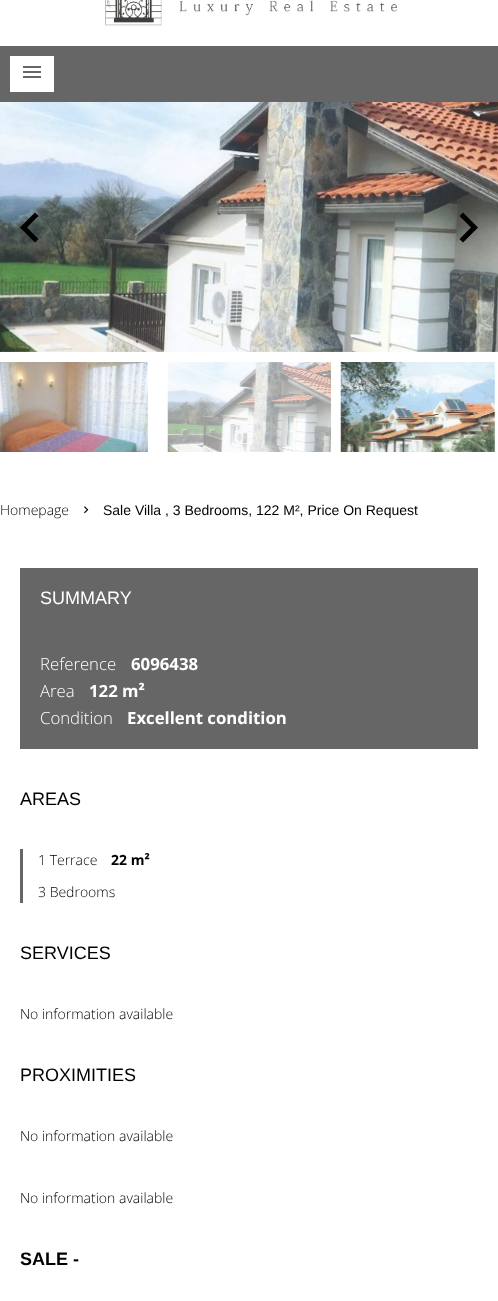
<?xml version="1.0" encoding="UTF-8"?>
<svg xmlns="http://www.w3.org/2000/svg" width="498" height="1301">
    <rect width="100%" height="100%" fill="#FFFFFF"/>
    <image x="105" y="0" width="292" height="26" href="img_01.png"/>
    <rect x="0" y="46" width="498" height="56" fill="#666666"/>
    <rect x="10" y="56" width="44" height="36" fill="#FFFFFF"/>
    <image x="23" y="66" width="18" height="12" href="img_02.png"/>
    <image x="0" y="102" width="498" height="250" href="img_03.png"/>
    <path d="M 38.5 239 L 27 227.5 L 38.5 216 L 35 212.5 L 20 227.5 L 35 242.5 Z" fill="#000000"/>
    <path d="M 459.5 239 L 471 227.5 L 459.5 216 L 463 212.5 L 478 227.5 L 463 242.5 Z" fill="#000000"/>
    <image x="0" y="362" width="148" height="90" href="img_04.png"/>
    <image x="167" y="362" width="164" height="90" href="img_05.png"/>
    <image x="340" y="362" width="156" height="90" href="img_06.png"/>
    <text x="0" y="515" font-family="Open Sans" font-size="14" font-weight="300" fill="#000000">Homepage</text>
    <image x="84" y="506" width="5" height="8" href="img_07.png"/>
    <text x="103" y="515" font-family="Liberation Sans" font-size="14" fill="#000000">Sale Villa , 3 Bedrooms, 122 M², Price On Request</text>
    <rect x="20" y="568" width="458" height="181" fill="#666666"/>
    <text x="40" y="604" font-family="Liberation Sans" font-size="18" fill="#FFFFFF">SUMMARY</text>
    <text x="40" y="670" font-family="Open Sans" font-size="16.75" font-weight="300" fill="#FFFFFF">Reference</text>
    <text x="131" y="670" font-family="Open Sans" font-size="16.75" font-weight="700" fill="#FFFFFF">6096438</text>
    <text x="40" y="697" font-family="Open Sans" font-size="16.75" font-weight="300" fill="#FFFFFF">Area</text>
    <text x="89" y="697" font-family="Open Sans" font-size="16.75" font-weight="700" fill="#FFFFFF">122 m²</text>
    <text x="40" y="724" font-family="Open Sans" font-size="16.75" font-weight="300" fill="#FFFFFF">Condition</text>
    <text x="127" y="724" font-family="Open Sans" font-size="16.75" font-weight="700" fill="#FFFFFF">Excellent condition</text>
    <text x="20" y="805" font-family="Liberation Sans" font-size="18" fill="#000000">AREAS</text>
    <rect x="20" y="849" width="3" height="54" fill="#666666"/>
    <text x="38" y="865" font-family="Open Sans" font-size="14" font-weight="300" fill="#000000">1 Terrace</text>
    <text x="111" y="865" font-family="Open Sans" font-size="14" font-weight="700" fill="#000000">22 m²</text>
    <text x="38" y="897" font-family="Open Sans" font-size="14" font-weight="300" fill="#000000">3 Bedrooms</text>
    <text x="20" y="959" font-family="Liberation Sans" font-size="18" fill="#000000">SERVICES</text>
    <text x="20" y="1019" font-family="Open Sans" font-size="14" font-weight="300" fill="#000000">No information available</text>
    <text x="20" y="1081" font-family="Liberation Sans" font-size="18" fill="#000000">PROXIMITIES</text>
    <text x="20" y="1141" font-family="Open Sans" font-size="14" font-weight="300" fill="#000000">No information available</text>
    <text x="20" y="1203" font-family="Open Sans" font-size="14" font-weight="300" fill="#000000">No information available</text>
    <text x="20" y="1265" font-family="Liberation Sans" font-size="18" font-weight="700" fill="#000000">SALE -</text>
</svg>
